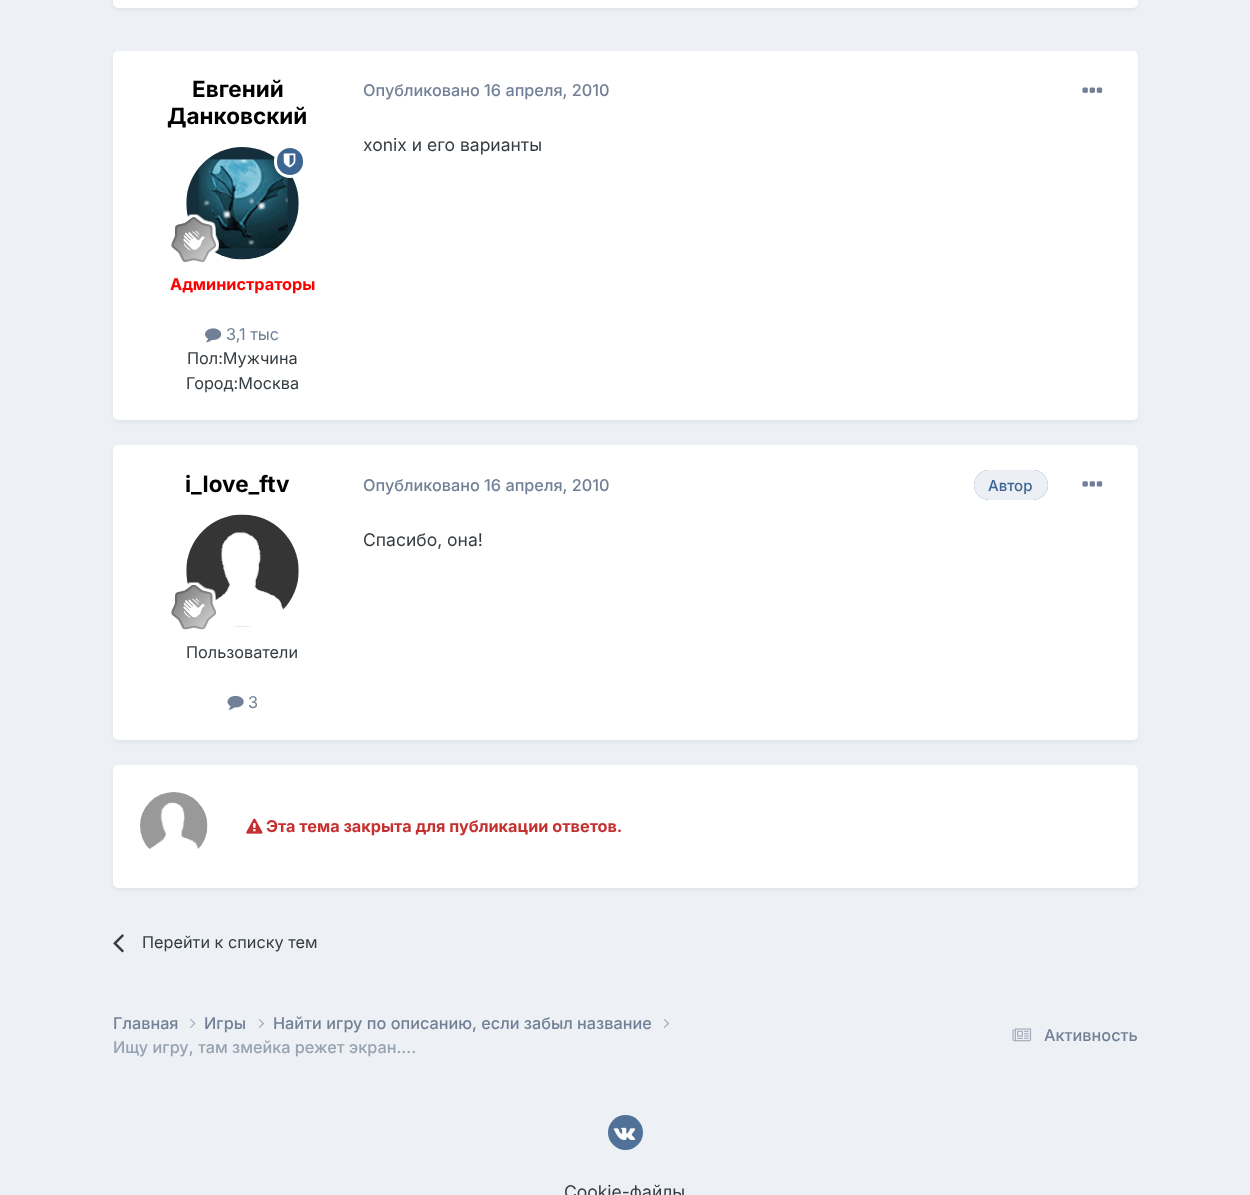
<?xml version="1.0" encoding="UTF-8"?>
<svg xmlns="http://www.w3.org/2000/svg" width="1250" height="1195">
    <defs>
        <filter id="blur1" x="-50%" y="-200%" width="200%" height="500%"><feGaussianBlur stdDeviation="2.5"/></filter>
    </defs>
    <rect width="100%" height="100%" fill="#EDF0F4"/>
    <rect x="114" y="-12" width="1022" height="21" rx="4" fill="#2D3748" fill-opacity="0.1" filter="url(#blur1)"/>
    <rect x="113" y="-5" width="1025" height="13" rx="5" fill="#FFFFFF"/>
    <rect x="114" y="55" width="1022" height="366" rx="4" fill="#2D3748" fill-opacity="0.1" filter="url(#blur1)"/>
    <rect x="113" y="51" width="1025" height="369" rx="5" fill="#FFFFFF"/>
    <text x="192" y="97" font-family="Inter" font-size="22.5" font-weight="700" fill="#000000">Евгений</text>
    <text x="167" y="124" font-family="Inter" font-size="22.5" font-weight="700" fill="#000000">Данковский</text>
    <image x="186" y="147" width="113" height="113" href="img_02.png"/>
    <rect x="275.5" y="146.5" width="29" height="30" rx="14.5" fill="#3D6594" stroke="#FFFFFF" stroke-width="3"/>
    <image x="283" y="153" width="13" height="15" href="img_01.png"/>
    <image x="171" y="214" width="48" height="48" href="img_03.png"/>
    <text x="170" y="290" font-family="Inter" font-size="16.25" font-weight="700" fill="#FF0000">Администраторы</text>
    <image x="205" y="328" width="17" height="15" href="img_04.png"/>
    <text x="226" y="340" font-family="Inter" font-size="16.25" fill="#718096">3,1 тыс</text>
    <text x="187" y="364" font-family="Inter" font-size="16.25" fill="#353C41">Пол:Мужчина</text>
    <text x="186" y="389" font-family="Inter" font-size="16.25" fill="#353C41">Город:Москва</text>
    <text x="363" y="96" font-family="Inter" font-size="16.25" font-weight="500" fill="#718096">Опубликовано 16 апреля, 2010</text>
    <image x="1082" y="87" width="21" height="6" href="img_05.png"/>
    <text x="363" y="151" font-family="Inter" font-size="17.5" fill="#353C41">xonix и его варианты</text>
    <rect x="114" y="449" width="1022" height="292" rx="4" fill="#2D3748" fill-opacity="0.1" filter="url(#blur1)"/>
    <rect x="113" y="445" width="1025" height="295" rx="5" fill="#FFFFFF"/>
    <text x="185" y="492" font-family="Inter" font-size="22.5" font-weight="700" fill="#000000">i_love_ftv</text>
    <image x="186" y="514" width="113" height="113" href="img_06.png"/>
    <image x="171" y="582" width="45" height="48" href="img_07.png"/>
    <text x="186" y="658" font-family="Inter" font-size="16.25" fill="#353C41">Пользователи</text>
    <image x="227" y="695" width="17" height="15" href="img_08.png"/>
    <text x="248" y="708" font-family="Inter" font-size="16.25" fill="#718096">3</text>
    <text x="363" y="491" font-family="Inter" font-size="16.25" font-weight="500" fill="#718096">Опубликовано 16 апреля, 2010</text>
    <rect x="974" y="470" width="74" height="30" rx="15" fill="#3D6594"/>
    <rect x="974" y="470" width="74" height="30" rx="15" fill="#FFFFFF" fill-opacity="0.9"/>
    <text x="988" y="491" font-family="Inter" font-size="15" font-weight="500" fill="#3D6594">Автор</text>
    <image x="1082" y="481" width="21" height="6" href="img_09.png"/>
    <text x="363" y="546" font-family="Inter" font-size="17.5" fill="#353C41">Спасибо, она!</text>
    <rect x="114" y="769" width="1022" height="120" rx="4" fill="#2D3748" fill-opacity="0.1" filter="url(#blur1)"/>
    <rect x="113" y="765" width="1025" height="123" rx="5" fill="#FFFFFF"/>
    <image x="140" y="792" width="68" height="57" href="img_10.png"/>
    <image x="246" y="818" width="17" height="16" href="img_11.png"/>
    <text x="266" y="832" font-family="Inter" font-size="16.25" font-weight="700" fill="#C53030">Эта тема закрыта для публикации ответов.</text>
    <image x="113" y="934" width="11" height="19" href="img_12.png"/>
    <text x="142" y="948" font-family="Inter" font-size="16.25" fill="#353C41">Перейти к списку тем</text>
    <text x="113" y="1029" font-family="Inter" font-size="16.25" font-weight="500" fill="#718096">Главная</text>
    <image x="190" y="1019" width="6" height="9" href="img_13.png"/>
    <text x="204" y="1029" font-family="Inter" font-size="16.25" font-weight="500" fill="#718096">Игры</text>
    <image x="259" y="1019" width="5" height="9" href="img_14.png"/>
    <text x="273" y="1029" font-family="Inter" font-size="16.25" font-weight="500" fill="#718096">Найти игру по описанию, если забыл название</text>
    <image x="664" y="1019" width="5" height="9" href="img_14.png"/>
    <text x="113" y="1053" font-family="Inter" font-size="16.25" font-weight="500" fill="#96A2B2">Ищу игру, там змейка режет экран....</text>
    <image x="1012" y="1028" width="20" height="14" href="img_15.png"/>
    <text x="1044" y="1041" font-family="Inter" font-size="16.25" font-weight="500" fill="#718096">Активность</text>
    <circle cx="625.5" cy="1132.5" r="17.5" fill="#507299"/>
    <image x="613" y="1127" width="23" height="13" href="img_16.png"/>
    <text x="564" y="1198" font-family="Inter" font-size="17.5" fill="#353C41">Cookie-файлы</text>
</svg>
